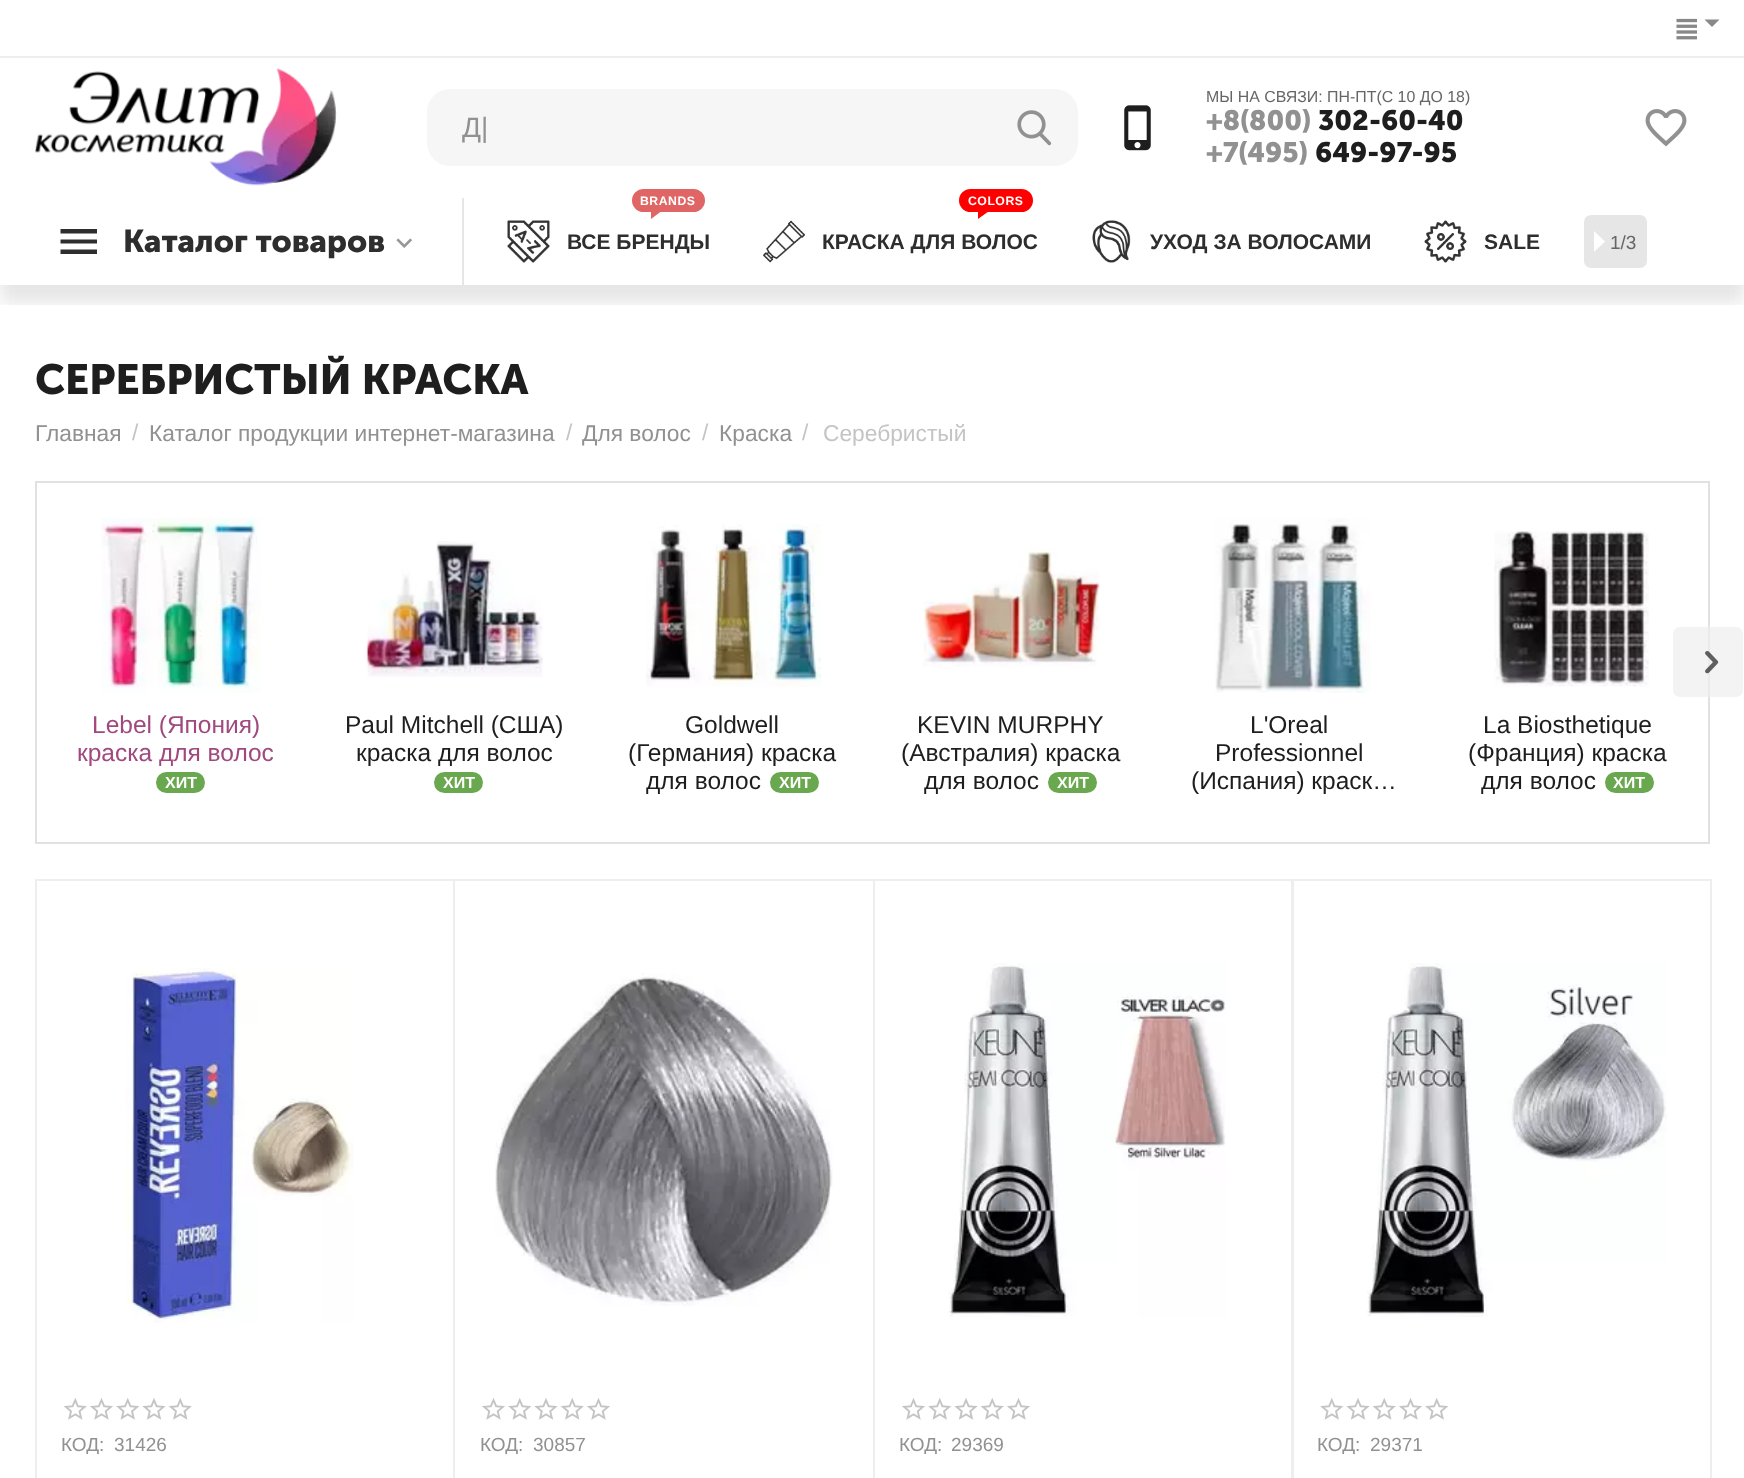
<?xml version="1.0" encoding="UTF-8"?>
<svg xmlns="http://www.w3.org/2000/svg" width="1744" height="1478">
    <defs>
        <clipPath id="clip1"><rect x="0" y="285" width="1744" height="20"/></clipPath>
        <filter id="blur1" x="-50%" y="-200%" width="200%" height="500%"><feGaussianBlur stdDeviation="9"/></filter>
        <clipPath id="clip2"><rect x="61" y="1433" width="368" height="21"/></clipPath>
        <clipPath id="clip3"><rect x="480" y="1433" width="369" height="21"/></clipPath>
        <clipPath id="clip4"><rect x="900" y="1433" width="367" height="21"/></clipPath>
        <clipPath id="clip5"><rect x="1318" y="1433" width="367" height="21"/></clipPath>
    </defs>
    <rect width="100%" height="100%" fill="#FFFFFF"/>
    <rect x="0" y="56" width="1744" height="2" fill="#EEEEEE"/>
    <image x="1676" y="18" width="21" height="22" href="img_01.png"/>
    <path d="M 1712 27 L 1704.5 19.5 H 1719.5 Z" fill="#888888"/>
    <g clip-path="url(#clip1)">
        <rect x="0" y="75" width="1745" height="228" fill="#000000" fill-opacity="0.05" filter="url(#blur1)"/>
    </g>
    <image x="35" y="68" width="302" height="118" href="img_02.png"/>
    <rect x="427" y="89" width="651" height="77" rx="23" fill="#F6F6F6"/>
    <text x="462" y="137" font-family="Liberation Sans" font-size="28" fill="#919191">Д|</text>
    <image x="1017" y="110" width="35" height="36" href="img_03.png"/>
    <image x="1124" y="105" width="27" height="46" href="img_04.png"/>
    <text x="1206" y="102" font-family="Liberation Sans" font-size="15.9" fill="#666666">МЫ НА СВЯЗИ: ПН-ПТ(С 10 ДО 18)</text>
    <text x="1206" y="130" font-family="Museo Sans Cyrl" font-size="28" font-weight="700" fill="#919191">+8(800)</text>
    <text x="1318" y="130" font-family="Museo Sans Cyrl" font-size="28" font-weight="700" fill="#1E1E1E">302-60-40</text>
    <text x="1206" y="162" font-family="Museo Sans Cyrl" font-size="28" font-weight="700" fill="#919191">+7(495)</text>
    <text x="1315" y="162" font-family="Museo Sans Cyrl" font-size="28" font-weight="700" fill="#1E1E1E">649-97-95</text>
    <image x="1645" y="109" width="42" height="38" href="img_05.png"/>
    <g clip-path="url(#clip1)">
        <rect x="0" y="215" width="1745" height="88" fill="#000000" fill-opacity="0.05" filter="url(#blur1)"/>
    </g>
    <rect x="462" y="198" width="2" height="87" fill="#E6E6E6"/>
    <path d="M 60.5 254 H 97 V 249.5 H 60.5 Z M 60.5 243.5 H 97 V 239.5 H 60.5 Z M 60.5 229 V 233.5 H 97 V 229 Z" fill="#2E2E2E"/>
    <text x="123" y="252" font-family="Museo Sans Cyrl" font-size="31.5" font-weight="700" fill="#2E2E2E">Каталог товаров</text>
    <image x="396" y="238" width="16" height="10" href="img_06.png"/>
    <image x="507" y="220" width="43" height="43" href="img_07.png"/>
    <rect x="633" y="190" width="71" height="21" rx="10.5" fill="#E06666" stroke="#E06666" stroke-width="2"/>
    <text x="640" y="205" font-family="Liberation Sans" font-size="12.25" font-weight="700" letter-spacing="0.5" fill="#FFFFFF">BRANDS</text>
    <path d="M 651 210 H 663 L 651 219 Z" fill="#E06666"/>
    <text x="567" y="249" font-family="Liberation Sans" font-size="21" font-weight="700" fill="#2E2E2E">ВСЕ БРЕНДЫ</text>
    <image x="763" y="220" width="42" height="43" href="img_08.png"/>
    <rect x="960" y="190" width="72" height="21" rx="10.5" fill="#FF0000" stroke="#FF0000" stroke-width="2"/>
    <text x="968" y="205" font-family="Liberation Sans" font-size="12.25" font-weight="700" letter-spacing="0.5" fill="#FFFFFF">COLORS</text>
    <path d="M 978 210 H 990.5 L 978 219 Z" fill="#FF0000"/>
    <text x="822" y="249" font-family="Liberation Sans" font-size="21" font-weight="700" fill="#2E2E2E">КРАСКА ДЛЯ ВОЛОС</text>
    <image x="1092" y="220" width="39" height="43" href="img_09.png"/>
    <text x="1150" y="249" font-family="Liberation Sans" font-size="21" font-weight="700" fill="#2E2E2E">УХОД ЗА ВОЛОСАМИ</text>
    <image x="1424" y="220" width="43" height="43" href="img_10.png"/>
    <text x="1484" y="249" font-family="Liberation Sans" font-size="21" font-weight="700" fill="#2E2E2E">SALE</text>
    <rect x="1584" y="215" width="63" height="53" rx="7" fill="#E6E6E6"/>
    <path d="M 1594 252 V 231 L 1605 241.5 Z" fill="#FFFFFF"/>
    <text x="1610" y="249" font-family="Liberation Sans" font-size="19" fill="#666666">1/3</text>
    <text x="35" y="394" font-family="Museo Sans Cyrl" font-size="42" font-weight="700" fill="#1E1E1E">СЕРЕБРИСТЫЙ КРАСКА</text>
    <text x="35" y="441" font-family="Liberation Sans" font-size="22.75" fill="#919191">Главная</text>
    <text x="132" y="440" font-family="Liberation Sans" font-size="22.75" fill="#C4C4C4">/</text>
    <text x="149" y="441" font-family="Liberation Sans" font-size="22.75" fill="#919191">Каталог продукции интернет-магазина</text>
    <text x="566" y="440" font-family="Liberation Sans" font-size="22.75" fill="#C4C4C4">/</text>
    <text x="582" y="441" font-family="Liberation Sans" font-size="22.75" fill="#919191">Для волос</text>
    <text x="702" y="440" font-family="Liberation Sans" font-size="22.75" fill="#C4C4C4">/</text>
    <text x="719" y="441" font-family="Liberation Sans" font-size="22.75" fill="#919191">Краска</text>
    <text x="802" y="440" font-family="Liberation Sans" font-size="22.75" fill="#C4C4C4">/</text>
    <text x="823" y="441" font-family="Liberation Sans" font-size="22.75" fill="#C4C4C4">Серебристый</text>
    <rect x="36" y="482" width="1673" height="361" fill="none" stroke="#E1E1E1" stroke-width="2"/>
    <rect x="1673" y="627" width="70" height="70" rx="7" fill="#EEEEEE" fill-opacity="0.7"/>
    <image x="1705" y="651" width="14" height="23" href="img_11.png"/>
    <image x="101" y="518" width="160" height="175" href="img_12.png"/>
    <text x="92" y="733" font-family="Liberation Sans" font-size="24.5" fill="#A1497E">Lebel (Япония)</text>
    <text x="77" y="761" font-family="Liberation Sans" font-size="24.5" fill="#A1497E">краска для волос</text>
    <rect x="156" y="772" width="49" height="21" rx="10.5" fill="#6AA84F"/>
    <text x="165" y="788" font-family="Liberation Sans" font-size="16" font-weight="700" fill="#FFFFFF">ХИТ</text>
    <image x="366" y="541" width="177" height="136" href="img_13.png"/>
    <text x="345" y="733" font-family="Liberation Sans" font-size="24.5" fill="#1E1E1E">Paul Mitchell (США)</text>
    <text x="356" y="761" font-family="Liberation Sans" font-size="24.5" fill="#1E1E1E">краска для волос</text>
    <rect x="434" y="772" width="49" height="21" rx="10.5" fill="#6AA84F"/>
    <text x="443" y="788" font-family="Liberation Sans" font-size="16" font-weight="700" fill="#FFFFFF">ХИТ</text>
    <image x="646" y="524" width="175" height="163" href="img_14.png"/>
    <text x="685" y="733" font-family="Liberation Sans" font-size="24.5" fill="#1E1E1E">Goldwell</text>
    <text x="628" y="761" font-family="Liberation Sans" font-size="24.5" fill="#1E1E1E">(Германия) краска</text>
    <text x="646" y="789" font-family="Liberation Sans" font-size="24.5" fill="#1E1E1E">для волос</text>
    <rect x="770" y="772" width="49" height="21" rx="10.5" fill="#6AA84F"/>
    <text x="779" y="788" font-family="Liberation Sans" font-size="16" font-weight="700" fill="#FFFFFF">ХИТ</text>
    <image x="923" y="548" width="177" height="119" href="img_15.png"/>
    <text x="917" y="733" font-family="Liberation Sans" font-size="24.5" fill="#1E1E1E">KEVIN MURPHY</text>
    <text x="901" y="761" font-family="Liberation Sans" font-size="24.5" fill="#1E1E1E">(Австралия) краска</text>
    <text x="924" y="789" font-family="Liberation Sans" font-size="24.5" fill="#1E1E1E">для волос</text>
    <rect x="1048" y="772" width="49" height="21" rx="10.5" fill="#6AA84F"/>
    <text x="1057" y="788" font-family="Liberation Sans" font-size="16" font-weight="700" fill="#FFFFFF">ХИТ</text>
    <image x="1215" y="518" width="156" height="175" href="img_16.png"/>
    <text x="1250" y="733" font-family="Liberation Sans" font-size="24.5" fill="#1E1E1E">L'Oreal</text>
    <text x="1215" y="761" font-family="Liberation Sans" font-size="24.5" fill="#1E1E1E">Professionnel</text>
    <text x="1191" y="789" font-family="Liberation Sans" font-size="24.5" fill="#1E1E1E">(Испания) краск…</text>
    <image x="1494" y="531" width="155" height="156" href="img_17.png"/>
    <text x="1483" y="733" font-family="Liberation Sans" font-size="24.5" fill="#1E1E1E">La Biosthetique</text>
    <text x="1468" y="761" font-family="Liberation Sans" font-size="24.5" fill="#1E1E1E">(Франция) краска</text>
    <text x="1481" y="789" font-family="Liberation Sans" font-size="24.5" fill="#1E1E1E">для волос</text>
    <rect x="1605" y="772" width="49" height="21" rx="10.5" fill="#6AA84F"/>
    <text x="1613" y="788" font-family="Liberation Sans" font-size="16" font-weight="700" fill="#FFFFFF">ХИТ</text>
    <rect x="36" y="880" width="418" height="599" fill="none" stroke="#EEEEEE" stroke-width="2"/>
    <image x="125" y="968" width="229" height="355" href="img_18.png"/>
    <image x="63" y="1398" width="129" height="22" href="img_19.png"/>
    <g clip-path="url(#clip2)">
        <text x="61" y="1451" font-family="Liberation Sans" font-size="19" fill="#919191">КОД:</text>
    </g>
    <text x="114" y="1451" font-family="Liberation Sans" font-size="19" fill="#919191">31426</text>
    <rect x="454" y="880" width="420" height="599" fill="none" stroke="#EEEEEE" stroke-width="2"/>
    <image x="495" y="973" width="338" height="333" href="img_20.png"/>
    <image x="482" y="1398" width="128" height="22" href="img_21.png"/>
    <g clip-path="url(#clip3)">
        <text x="480" y="1451" font-family="Liberation Sans" font-size="19" fill="#919191">КОД:</text>
    </g>
    <text x="533" y="1451" font-family="Liberation Sans" font-size="19" fill="#919191">30857</text>
    <rect x="874" y="880" width="418" height="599" fill="none" stroke="#EEEEEE" stroke-width="2"/>
    <image x="948" y="963" width="278" height="354" href="img_22.png"/>
    <image x="902" y="1398" width="128" height="22" href="img_21.png"/>
    <g clip-path="url(#clip4)">
        <text x="899" y="1451" font-family="Liberation Sans" font-size="19" fill="#919191">КОД:</text>
    </g>
    <text x="951" y="1451" font-family="Liberation Sans" font-size="19" fill="#919191">29369</text>
    <rect x="1293" y="880" width="418" height="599" fill="none" stroke="#EEEEEE" stroke-width="2"/>
    <image x="1367" y="963" width="300" height="354" href="img_23.png"/>
    <image x="1320" y="1398" width="129" height="22" href="img_24.png"/>
    <g clip-path="url(#clip5)">
        <text x="1317" y="1451" font-family="Liberation Sans" font-size="19" fill="#919191">КОД:</text>
    </g>
    <text x="1370" y="1451" font-family="Liberation Sans" font-size="19" fill="#919191">29371</text>
</svg>
